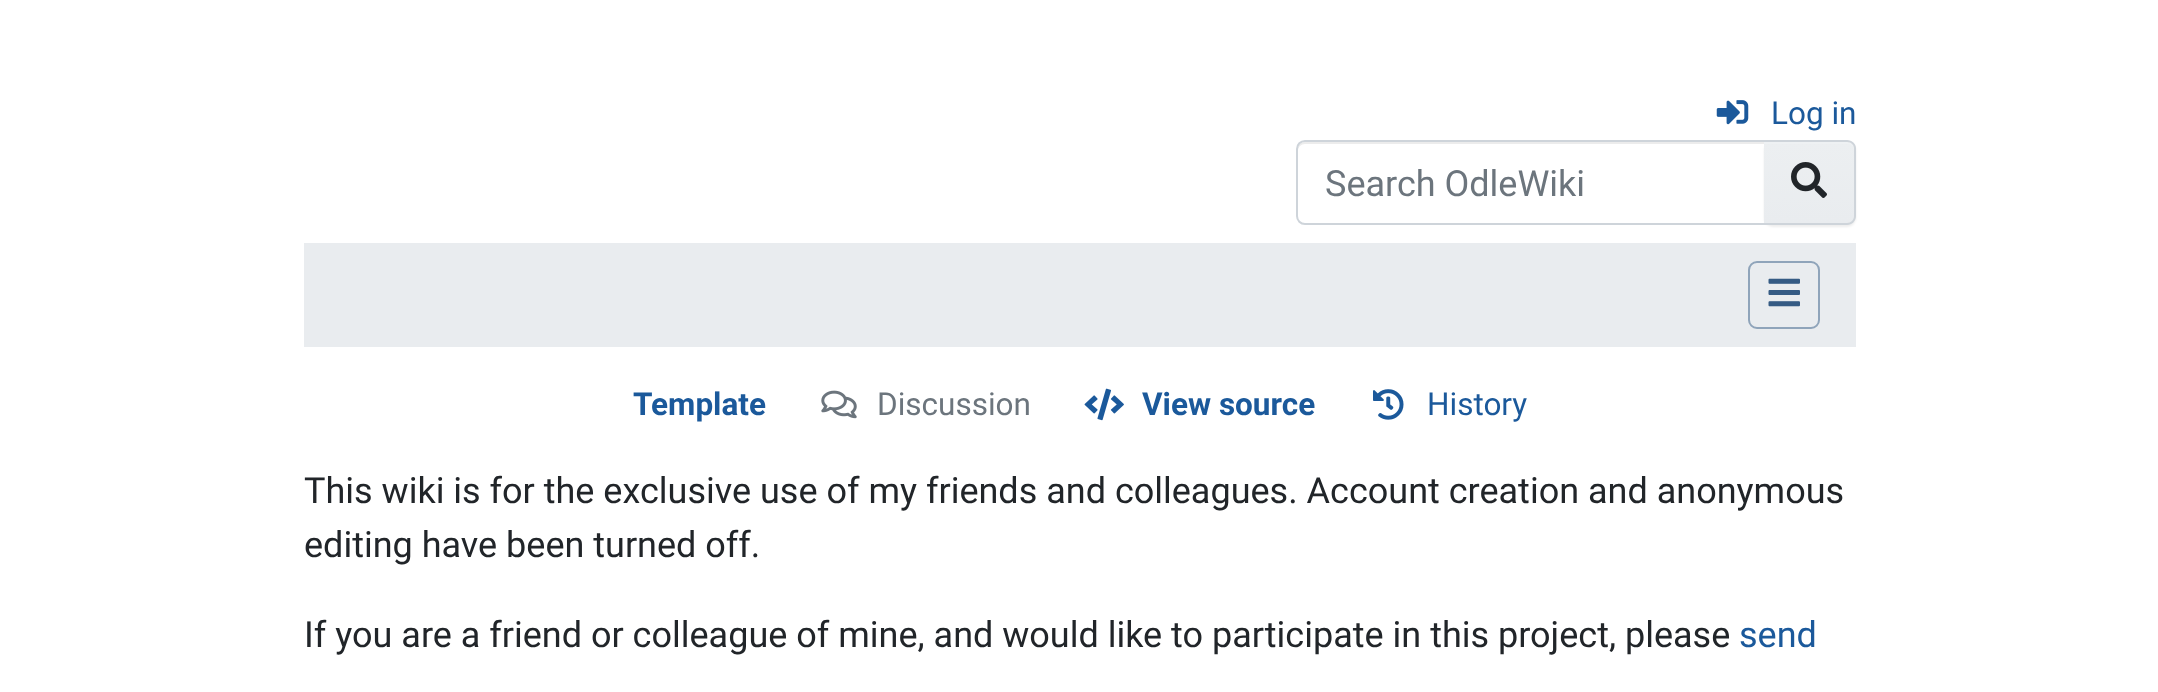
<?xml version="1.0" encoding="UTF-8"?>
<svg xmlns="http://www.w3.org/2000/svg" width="2158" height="692">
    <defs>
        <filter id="blur1" x="-50%" y="-200%" width="200%" height="500%"><feGaussianBlur stdDeviation="1"/></filter>
        <linearGradient id="g1" gradientUnits="userSpaceOnUse" x1="1809" y1="142" x2="1809" y2="223"><stop offset="0" stop-color="#ECEFF1"/><stop offset="1" stop-color="#E9ECEF"/></linearGradient>
    </defs>
    <rect width="100%" height="100%" fill="#FFFFFF"/>
    <image x="1716" y="100" width="33" height="25" href="img_01.png"/>
    <text x="1771" y="124" font-family="Roboto" font-size="31.5" fill="#1B599B">Log in</text>
    <path d="M 1305 144 H 1764 V 142 H 1305 C 1301 142 1298 145 1298 149 V 151 C 1298 147 1301 144 1305 144 Z" fill="#ECECEC"/>
    <path d="M 1305 141 H 1765 V 224 H 1305 C 1300.5 224 1297 220.5 1297 216 V 149 C 1297 144.5 1300.5 141 1305 141 Z" fill="none" stroke="#CED4DA" stroke-width="2"/>
    <text x="1325" y="196" font-family="Roboto" font-size="36" fill="#6C757D">Search OdleWiki</text>
    <rect x="1764" y="142" width="92" height="85" rx="9" fill="#000000" fill-opacity="0.07" filter="url(#blur1)"/>
    <path d="M 1764 142 H 1847 C 1851 142 1854 145 1854 149 V 216 C 1854 220 1851 223 1847 223 H 1764 Z" fill="url(#g1)"/>
    <path d="M 1764 144 H 1847 C 1851 144 1854 147 1854 151 V 149 C 1854 145 1851 142 1847 142 H 1764 Z" fill="#FFFFFF" fill-opacity="0.15"/>
    <path d="M 1764 140 H 1847 C 1852 140 1856 144 1856 148 V 216 C 1856 221 1852 225 1847 225 H 1764 Z M 1764 142 H 1847 C 1851 142 1854 145 1854 148 V 216 C 1854 220 1851 223 1847 223 H 1764 Z" fill="#CED4DA" fill-rule="evenodd"/>
    <image x="1791" y="162" width="36" height="36" href="img_02.png"/>
    <rect x="304" y="243" width="1552" height="104" fill="#E9ECEF"/>
    <rect x="1749" y="262" width="70" height="66" rx="8" fill="none" stroke="#8FA4BA" stroke-width="2"/>
    <image x="1768" y="278" width="32" height="29" href="img_03.png"/>
    <text x="633" y="415" font-family="Roboto" font-size="31.5" font-weight="700" fill="#1B599B">Template</text>
    <image x="821" y="390" width="36" height="29" href="img_04.png"/>
    <text x="877" y="415" font-family="Roboto" font-size="31.5" fill="#6C757D">Discussion</text>
    <image x="1084" y="388" width="40" height="33" href="img_05.png"/>
    <text x="1142" y="415" font-family="Roboto" font-size="31.5" font-weight="700" fill="#1B599B">View source</text>
    <image x="1373" y="389" width="31" height="31" href="img_06.png"/>
    <text x="1427" y="415" font-family="Roboto" font-size="31.5" fill="#1B599B">History</text>
    <text font-family="Roboto" font-size="36" fill="#212529">
        <tspan x="304" y="503">This wiki is for the exclusive use of my friends and colleagues. Account creation and anonymous</tspan>
        <tspan x="304" y="557">editing have been turned off.</tspan>
    </text>
    <text x="304" y="647" font-family="Roboto" font-size="36" fill="#212529">If you are a friend or colleague of mine, and would like to participate in this project, please</text>
    <text x="1739" y="647" font-family="Roboto" font-size="36" fill="#1B599B">send</text>
</svg>
